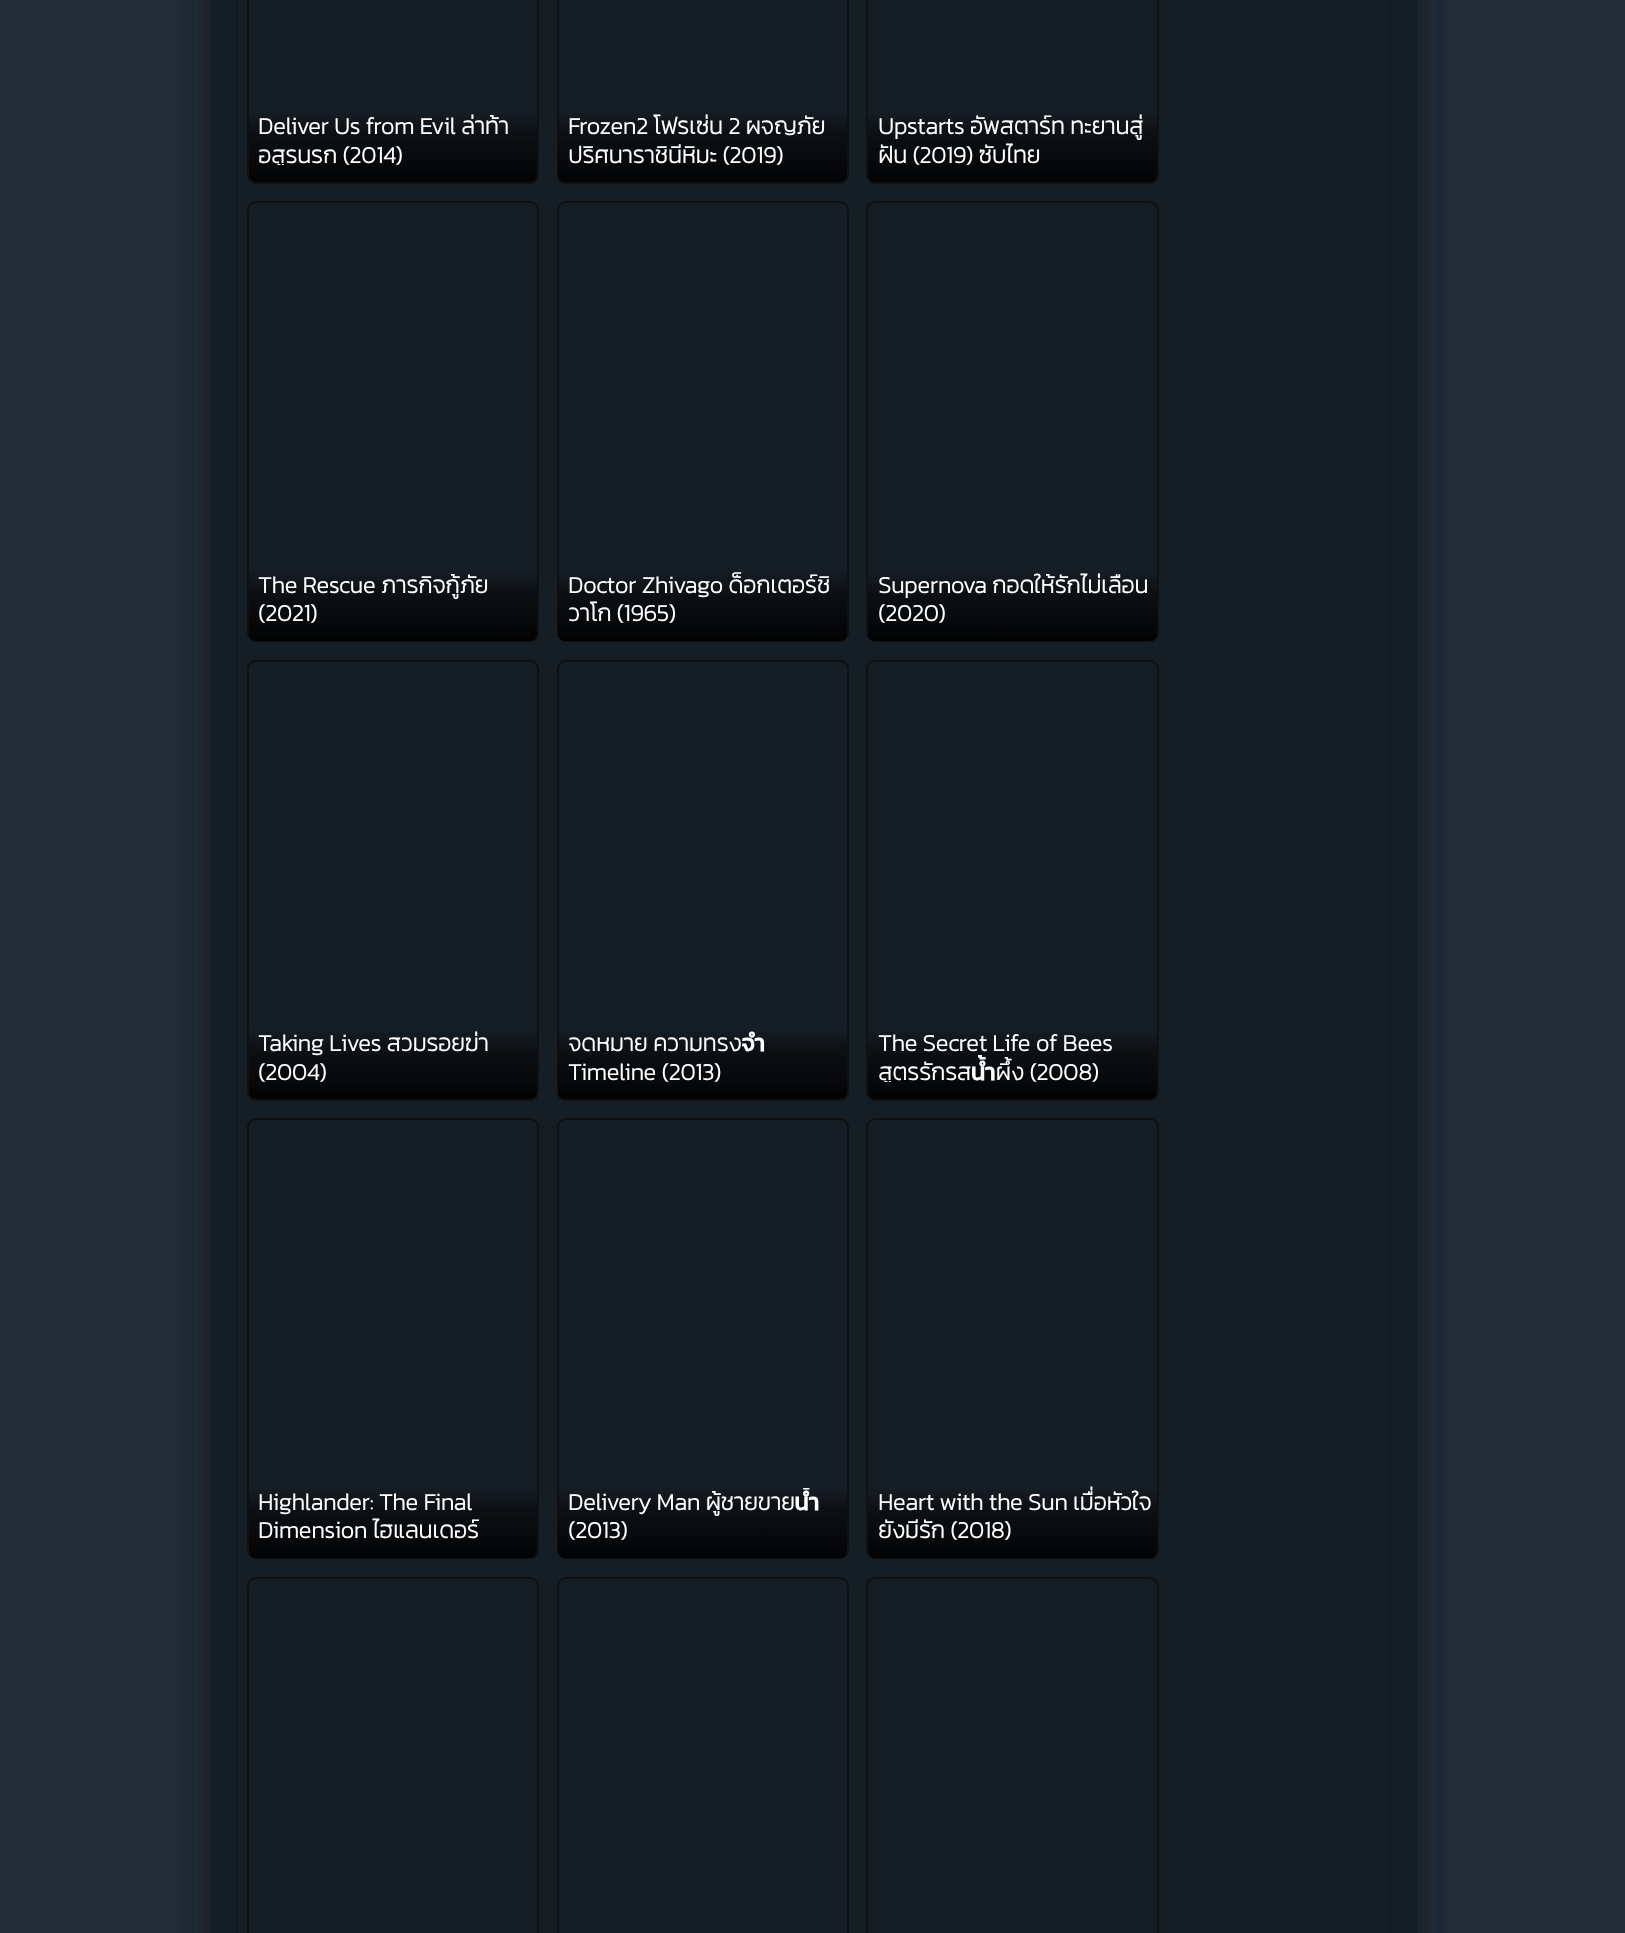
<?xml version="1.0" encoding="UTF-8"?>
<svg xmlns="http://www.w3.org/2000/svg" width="1625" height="1933">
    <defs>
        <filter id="blur1" x="-50%" y="-200%" width="200%" height="500%"><feGaussianBlur stdDeviation="17.5"/></filter>
        <linearGradient id="g1" gradientUnits="userSpaceOnUse" x1="393" y1="112" x2="393" y2="182"><stop offset="0" stop-color="#060606" stop-opacity="0"/><stop offset="0.3" stop-color="#060606" stop-opacity="0.55"/><stop offset="1" stop-color="#000000" stop-opacity="0.92"/></linearGradient>
        <clipPath id="clip1"><rect x="249" y="112" width="288" height="53"/></clipPath>
        <linearGradient id="g2" gradientUnits="userSpaceOnUse" x1="703" y1="112" x2="703" y2="182"><stop offset="0" stop-color="#060606" stop-opacity="0"/><stop offset="0.3" stop-color="#060606" stop-opacity="0.55"/><stop offset="1" stop-color="#000000" stop-opacity="0.92"/></linearGradient>
        <linearGradient id="g3" gradientUnits="userSpaceOnUse" x1="1012" y1="112" x2="1012" y2="182"><stop offset="0" stop-color="#060606" stop-opacity="0"/><stop offset="0.3" stop-color="#060606" stop-opacity="0.55"/><stop offset="1" stop-color="#000000" stop-opacity="0.92"/></linearGradient>
        <linearGradient id="g4" gradientUnits="userSpaceOnUse" x1="393" y1="571" x2="393" y2="641"><stop offset="0" stop-color="#060606" stop-opacity="0"/><stop offset="0.3" stop-color="#060606" stop-opacity="0.55"/><stop offset="1" stop-color="#000000" stop-opacity="0.92"/></linearGradient>
        <linearGradient id="g5" gradientUnits="userSpaceOnUse" x1="703" y1="571" x2="703" y2="641"><stop offset="0" stop-color="#060606" stop-opacity="0"/><stop offset="0.3" stop-color="#060606" stop-opacity="0.55"/><stop offset="1" stop-color="#000000" stop-opacity="0.92"/></linearGradient>
        <linearGradient id="g6" gradientUnits="userSpaceOnUse" x1="1012" y1="571" x2="1012" y2="641"><stop offset="0" stop-color="#060606" stop-opacity="0"/><stop offset="0.3" stop-color="#060606" stop-opacity="0.55"/><stop offset="1" stop-color="#000000" stop-opacity="0.92"/></linearGradient>
        <linearGradient id="g7" gradientUnits="userSpaceOnUse" x1="393" y1="1029" x2="393" y2="1099"><stop offset="0" stop-color="#060606" stop-opacity="0"/><stop offset="0.3" stop-color="#060606" stop-opacity="0.55"/><stop offset="1" stop-color="#000000" stop-opacity="0.92"/></linearGradient>
        <linearGradient id="g8" gradientUnits="userSpaceOnUse" x1="703" y1="1029" x2="703" y2="1099"><stop offset="0" stop-color="#060606" stop-opacity="0"/><stop offset="0.3" stop-color="#060606" stop-opacity="0.55"/><stop offset="1" stop-color="#000000" stop-opacity="0.92"/></linearGradient>
        <linearGradient id="g9" gradientUnits="userSpaceOnUse" x1="1012" y1="1029" x2="1012" y2="1099"><stop offset="0" stop-color="#060606" stop-opacity="0"/><stop offset="0.3" stop-color="#060606" stop-opacity="0.55"/><stop offset="1" stop-color="#000000" stop-opacity="0.92"/></linearGradient>
        <clipPath id="clip2"><rect x="868" y="1029" width="289" height="53"/></clipPath>
        <linearGradient id="g10" gradientUnits="userSpaceOnUse" x1="393" y1="1488" x2="393" y2="1558"><stop offset="0" stop-color="#060606" stop-opacity="0"/><stop offset="0.3" stop-color="#060606" stop-opacity="0.55"/><stop offset="1" stop-color="#000000" stop-opacity="0.92"/></linearGradient>
        <linearGradient id="g11" gradientUnits="userSpaceOnUse" x1="703" y1="1488" x2="703" y2="1558"><stop offset="0" stop-color="#060606" stop-opacity="0"/><stop offset="0.3" stop-color="#060606" stop-opacity="0.55"/><stop offset="1" stop-color="#000000" stop-opacity="0.92"/></linearGradient>
        <clipPath id="clip3"><rect x="558" y="1488" width="289" height="52"/></clipPath>
        <linearGradient id="g12" gradientUnits="userSpaceOnUse" x1="1012" y1="1488" x2="1012" y2="1558"><stop offset="0" stop-color="#060606" stop-opacity="0"/><stop offset="0.3" stop-color="#060606" stop-opacity="0.55"/><stop offset="1" stop-color="#000000" stop-opacity="0.92"/></linearGradient>
    </defs>
    <rect width="100%" height="100%" fill="#222D38"/>
    <rect x="207" y="-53" width="1214" height="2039" fill="#161D23" filter="url(#blur1)"/>
    <rect x="210" y="0" width="1208" height="1933" fill="#151D25"/>
    <rect x="237" y="-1" width="1153" height="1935" fill="none" stroke="#121920" stroke-width="2"/>
    <rect x="248" y="-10" width="290" height="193" rx="8" fill="none" stroke="#111111" stroke-width="2"/>
    <path d="M 254 112 H 532 C 535 112 537 114 537 117 V 175 C 537 179 534 182 530 182 H 256 C 252 182 249 179 249 175 V 117 C 249 114 251 112 254 112 Z" fill="url(#g1)"/>
    <text x="258" y="134" font-family="Kanit" font-size="23.6" font-weight="700" fill="#FFFFFF">Deliver Us from Evil ล่าท้า</text>
    <g clip-path="url(#clip1)">
        <text x="258" y="163" font-family="Kanit" font-size="23.6" font-weight="700" fill="#FFFFFF">อสูรนรก (2014)</text>
    </g>
    <rect x="558" y="-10" width="290" height="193" rx="8" fill="none" stroke="#111111" stroke-width="2"/>
    <path d="M 563 112 H 842 C 845 112 847 114 847 117 V 175 C 847 179 844 182 840 182 H 565 C 561 182 558 179 558 175 V 117 C 558 114 560 112 563 112 Z" fill="url(#g2)"/>
    <text font-family="Kanit" font-size="23.6" font-weight="700" fill="#FFFFFF">
        <tspan x="568" y="134">Frozen2 โฟรเซ่น 2 ผจญภัย</tspan>
        <tspan x="568" y="163">ปริศนาราชินีหิมะ (2019)</tspan>
    </text>
    <rect x="867" y="-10" width="291" height="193" rx="8" fill="none" stroke="#111111" stroke-width="2"/>
    <path d="M 873 112 H 1152 C 1155 112 1157 114 1157 117 V 175 C 1157 179 1154 182 1150 182 H 875 C 871 182 868 179 868 175 V 117 C 868 114 870 112 873 112 Z" fill="url(#g3)"/>
    <text font-family="Kanit" font-size="23.6" font-weight="700" fill="#FFFFFF">
        <tspan x="878" y="134">Upstarts อัพสตาร์ท ทะยานสู่</tspan>
        <tspan x="878" y="163">ฝัน (2019) ซับไทย</tspan>
    </text>
    <rect x="248" y="202" width="290" height="439" rx="8" fill="none" stroke="#111111" stroke-width="2"/>
    <path d="M 254 571 H 532 C 535 571 537 573 537 576 V 634 C 537 638 534 641 530 641 H 256 C 252 641 249 638 249 634 V 576 C 249 573 251 571 254 571 Z" fill="url(#g4)"/>
    <text font-family="Kanit" font-size="23.6" font-weight="700" fill="#FFFFFF">
        <tspan x="258" y="593">The Rescue ภารกิจกู้ภัย</tspan>
        <tspan x="258" y="621">(2021)</tspan>
    </text>
    <rect x="558" y="202" width="290" height="439" rx="8" fill="none" stroke="#111111" stroke-width="2"/>
    <path d="M 563 571 H 842 C 845 571 847 573 847 576 V 634 C 847 638 844 641 840 641 H 565 C 561 641 558 638 558 634 V 576 C 558 573 560 571 563 571 Z" fill="url(#g5)"/>
    <text font-family="Kanit" font-size="23.6" font-weight="700" fill="#FFFFFF">
        <tspan x="568" y="593">Doctor Zhivago ด็อกเตอร์ชิ</tspan>
        <tspan x="568" y="621">วาโก (1965)</tspan>
    </text>
    <rect x="867" y="202" width="291" height="439" rx="8" fill="none" stroke="#111111" stroke-width="2"/>
    <path d="M 873 571 H 1152 C 1155 571 1157 573 1157 576 V 634 C 1157 638 1154 641 1150 641 H 875 C 871 641 868 638 868 634 V 576 C 868 573 870 571 873 571 Z" fill="url(#g6)"/>
    <text font-family="Kanit" font-size="23.6" font-weight="700" fill="#FFFFFF">
        <tspan x="878" y="593">Supernova กอดให้รักไม่เลือน</tspan>
        <tspan x="878" y="621">(2020)</tspan>
    </text>
    <rect x="248" y="661" width="290" height="439" rx="8" fill="none" stroke="#111111" stroke-width="2"/>
    <path d="M 254 1029 H 532 C 535 1029 537 1031 537 1034 V 1092 C 537 1096 534 1099 530 1099 H 256 C 252 1099 249 1096 249 1092 V 1034 C 249 1031 251 1029 254 1029 Z" fill="url(#g7)"/>
    <text font-family="Kanit" font-size="23.6" font-weight="700" fill="#FFFFFF">
        <tspan x="258" y="1051">Taking Lives สวมรอยฆ่า</tspan>
        <tspan x="258" y="1080">(2004)</tspan>
    </text>
    <rect x="558" y="661" width="290" height="439" rx="8" fill="none" stroke="#111111" stroke-width="2"/>
    <path d="M 563 1029 H 842 C 845 1029 847 1031 847 1034 V 1092 C 847 1096 844 1099 840 1099 H 565 C 561 1099 558 1096 558 1092 V 1034 C 558 1031 560 1029 563 1029 Z" fill="url(#g8)"/>
    <text font-family="Kanit" font-size="23.6" font-weight="700" fill="#FFFFFF">
        <tspan x="568" y="1051">จดหมาย ความทรงจำ</tspan>
        <tspan x="568" y="1080">Timeline (2013)</tspan>
    </text>
    <rect x="867" y="661" width="291" height="439" rx="8" fill="none" stroke="#111111" stroke-width="2"/>
    <path d="M 873 1029 H 1152 C 1155 1029 1157 1031 1157 1034 V 1092 C 1157 1096 1154 1099 1150 1099 H 875 C 871 1099 868 1096 868 1092 V 1034 C 868 1031 870 1029 873 1029 Z" fill="url(#g9)"/>
    <text x="878" y="1051" font-family="Kanit" font-size="23.6" font-weight="700" fill="#FFFFFF">The Secret Life of Bees</text>
    <g clip-path="url(#clip2)">
        <text x="878" y="1080" font-family="Kanit" font-size="23.6" font-weight="700" fill="#FFFFFF">สูตรรักรสน้ำผึ้ง (2008)</text>
    </g>
    <rect x="248" y="1119" width="290" height="439" rx="8" fill="none" stroke="#111111" stroke-width="2"/>
    <path d="M 254 1488 H 532 C 535 1488 537 1490 537 1493 V 1551 C 537 1555 534 1558 530 1558 H 256 C 252 1558 249 1555 249 1551 V 1493 C 249 1490 251 1488 254 1488 Z" fill="url(#g10)"/>
    <text font-family="Kanit" font-size="23.6" font-weight="700" fill="#FFFFFF">
        <tspan x="258" y="1510">Highlander: The Final</tspan>
        <tspan x="258" y="1538">Dimension ไฮแลนเดอร์</tspan>
    </text>
    <rect x="558" y="1119" width="290" height="439" rx="8" fill="none" stroke="#111111" stroke-width="2"/>
    <path d="M 563 1488 H 842 C 845 1488 847 1490 847 1493 V 1551 C 847 1555 844 1558 840 1558 H 565 C 561 1558 558 1555 558 1551 V 1493 C 558 1490 560 1488 563 1488 Z" fill="url(#g11)"/>
    <g clip-path="url(#clip3)">
        <text x="568" y="1510" font-family="Kanit" font-size="23.6" font-weight="700" fill="#FFFFFF">Delivery Man ผู้ชายขายน้ำ</text>
    </g>
    <text x="568" y="1538" font-family="Kanit" font-size="23.6" font-weight="700" fill="#FFFFFF">(2013)</text>
    <rect x="867" y="1119" width="291" height="439" rx="8" fill="none" stroke="#111111" stroke-width="2"/>
    <path d="M 873 1488 H 1152 C 1155 1488 1157 1490 1157 1493 V 1551 C 1157 1555 1154 1558 1150 1558 H 875 C 871 1558 868 1555 868 1551 V 1493 C 868 1490 870 1488 873 1488 Z" fill="url(#g12)"/>
    <text font-family="Kanit" font-size="23.6" font-weight="700" fill="#FFFFFF">
        <tspan x="878" y="1510">Heart with the Sun เมื่อหัวใจ</tspan>
        <tspan x="878" y="1538">ยังมีรัก (2018)</tspan>
    </text>
    <rect x="248" y="1578" width="290" height="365" rx="8" fill="none" stroke="#111111" stroke-width="2"/>
    <rect x="558" y="1578" width="290" height="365" rx="8" fill="none" stroke="#111111" stroke-width="2"/>
    <rect x="867" y="1578" width="291" height="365" rx="8" fill="none" stroke="#111111" stroke-width="2"/>
</svg>
